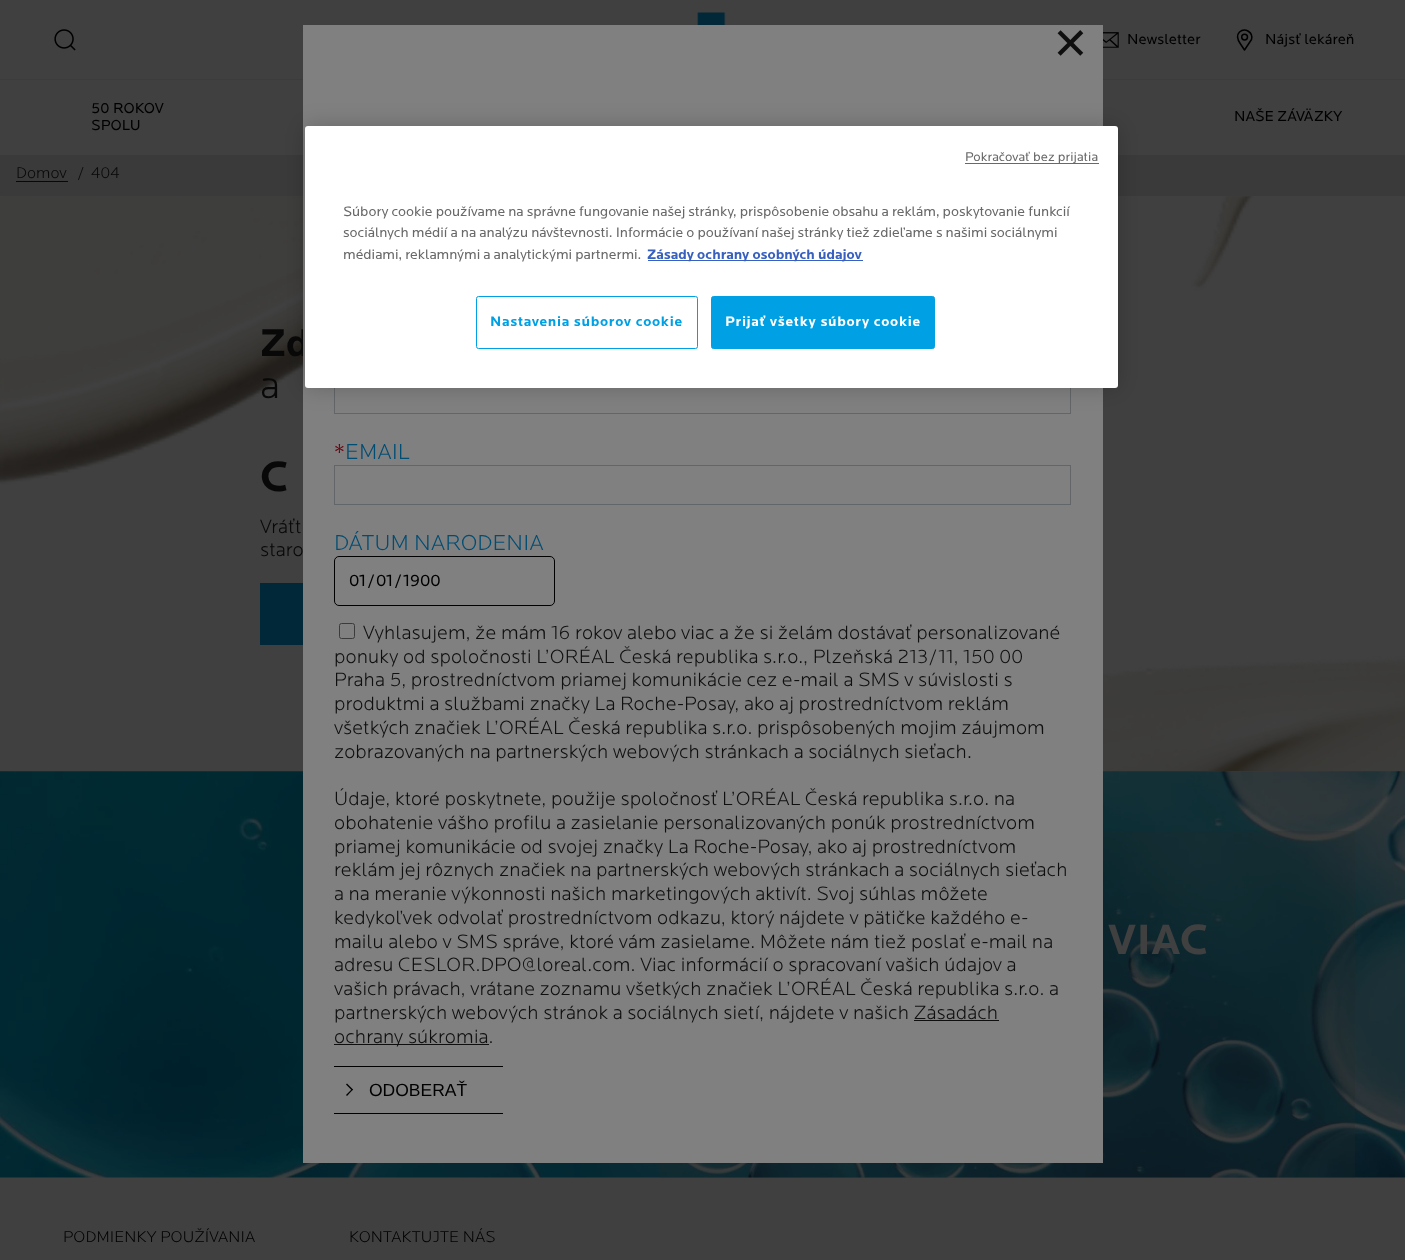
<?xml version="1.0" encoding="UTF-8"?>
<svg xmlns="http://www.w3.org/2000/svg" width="1405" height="1260">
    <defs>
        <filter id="blur1" x="-50%" y="-200%" width="200%" height="500%"><feGaussianBlur stdDeviation="11"/></filter>
    </defs>
    <rect width="100%" height="100%" fill="#404040"/>
    <rect x="0" y="79" width="1405" height="1" fill="#3C3C3C"/>
    <rect x="0" y="155" width="1405" height="41" fill="#3A3A3A"/>
    <image x="0" y="196" width="1405" height="576" href="img_04.png"/>
    <text x="260" y="356" font-family="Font" font-size="40" font-weight="700" letter-spacing="0.12" fill="#080808">Zd</text>
    <image x="0" y="771" width="1405" height="407" href="img_05.png"/>
    <rect x="660" y="831" width="695" height="347" fill="#2A2A2A" fill-opacity="0.2"/>
    <rect x="303" y="25" width="800" height="1138" fill="#808080"/>
    <text x="1052" y="59" font-family="DejaVu Sans" font-size="44" letter-spacing="0.12" fill="#0F0F0F">✕</text>
    <rect x="334.5" y="374.5" width="736" height="39" fill="none" stroke="#636668"/>
    <text x="334" y="459" font-family="Font" font-size="22.5" font-weight="300" letter-spacing="0.12" fill="#68010E">*</text>
    <text x="345" y="459" font-family="Font" font-size="22.5" font-weight="300" letter-spacing="0.12" fill="#004D74">EMAIL</text>
    <rect x="334.5" y="465.5" width="736" height="39" fill="none" stroke="#636668"/>
    <text x="334" y="550" font-family="Font" font-size="22.5" font-weight="300" letter-spacing="0.12" fill="#004D74">DÁTUM NARODENIA</text>
    <rect x="334.5" y="556.5" width="220" height="49" rx="4.5" fill="none" stroke="#000000"/>
    <text x="349" y="586" font-family="Font" font-size="17" fill="#000000">01</text>
    <text x="367" y="586" font-family="Font" font-size="17" fill="#000000">/</text>
    <text x="376" y="586" font-family="Font" font-size="17" fill="#000000">01</text>
    <text x="394" y="586" font-family="Font" font-size="17" fill="#000000">/</text>
    <text x="403" y="586" font-family="Font" font-size="17" fill="#000000">1900</text>
    <rect x="339.5" y="623.5" width="15" height="15" rx="2" fill="none" stroke="#3B3B3B"/>
    <text x="363" y="639" font-family="Font" font-size="20" font-weight="300" letter-spacing="0.12" fill="#0F0F0F">Vyhlasujem, že mám 16 rokov alebo viac a že si želám dostávať personalizované</text>
    <text font-family="Font" font-size="20" font-weight="300" letter-spacing="0.12" fill="#0F0F0F">
        <tspan x="334" y="663">ponuky od spoločnosti L’ORÉAL Česká republika s.r.o., Plzeňská 213/11, 150 00</tspan>
        <tspan x="334" y="686">Praha 5, prostredníctvom priamej komunikácie cez e-mail a SMS v súvislosti s</tspan>
        <tspan x="334" y="710">produktmi a službami značky La Roche-Posay, ako aj prostredníctvom reklám</tspan>
        <tspan x="334" y="734">všetkých značiek L’ORÉAL Česká republika s.r.o. prispôsobených mojim záujmom</tspan>
        <tspan x="334" y="758">zobrazovaných na partnerských webových stránkach a sociálnych sieťach.</tspan>
    </text>
    <text font-family="Font" font-size="20" font-weight="300" letter-spacing="0.12" fill="#0F0F0F">
        <tspan x="334" y="805">Údaje, ktoré poskytnete, použije spoločnosť L’ORÉAL Česká republika s.r.o. na</tspan>
        <tspan x="334" y="829">obohatenie vášho profilu a zasielanie personalizovaných ponúk prostredníctvom</tspan>
        <tspan x="334" y="853">priamej komunikácie od svojej značky La Roche-Posay, ako aj prostredníctvom</tspan>
        <tspan x="334" y="876">reklám jej rôznych značiek na partnerských webových stránkach a sociálnych sieťach</tspan>
        <tspan x="334" y="900">a na meranie výkonnosti našich marketingových aktivít. Svoj súhlas môžete</tspan>
        <tspan x="334" y="924">kedykoľvek odvolať prostredníctvom odkazu, ktorý nájdete v pätičke každého e-</tspan>
        <tspan x="334" y="948">mailu alebo v SMS správe, ktoré vám zasielame. Môžete nám tiež poslať e-mail na</tspan>
        <tspan x="334" y="971">adresu CESLOR.DPO@loreal.com. Viac informácií o spracovaní vašich údajov a</tspan>
        <tspan x="334" y="995">vašich právach, vrátane zoznamu všetkých značiek L’ORÉAL Česká republika s.r.o. a</tspan>
        <tspan x="334" y="1019">partnerských webových stránok a sociálnych sietí, nájdete v našich Zásadách</tspan>
    </text>
    <rect x="914" y="1020" width="85" height="1" fill="#0F0F0F"/>
    <rect x="334" y="1044" width="155" height="1" fill="#0F0F0F"/>
    <text x="334" y="1043" font-family="Font" font-size="20" font-weight="300" letter-spacing="0.12" fill="#0F0F0F">ochrany súkromia.</text>
    <rect x="334" y="1066" width="169" height="1" fill="#000000"/>
    <rect x="334" y="1113" width="169" height="1" fill="#000000"/>
    <path d="M 347 1083.5 L 353 1089.5 L 352 1090.5 L 346 1084.5 Z" fill="#000000"/>
    <path d="M 352 1089 L 353 1089.5 L 347 1096 L 346 1095 Z" fill="#000000"/>
    <text x="369" y="1096" font-family="Liberation Sans" font-size="17.5" fill="#000000">ODOBERAŤ</text>
    <image x="697" y="12" width="29" height="13" href="img_01.png"/>
    <image x="54" y="29" width="22" height="22" href="img_02.png"/>
    <image x="1103" y="32" width="16" height="16" href="img_03.png"/>
    <text x="1127" y="44" font-family="Font" font-size="15" letter-spacing="0.12" fill="#000000">Newsletter</text>
    <path d="M 1250.5 41 L 1244.5 50 L 1240.5 44 C 1238 40.5 1235.5 36 1239.5 32 C 1245 27 1253.5 32.5 1251.5 39.5 Z" fill="none" stroke="#000000" stroke-width="1.5" stroke-linejoin="round"/>
    <circle cx="1244.6" cy="37.1" r="2.9" fill="none" stroke="#000000" stroke-width="1.5"/>
    <text x="1265" y="44" font-family="Font" font-size="15" letter-spacing="0.12" fill="#000000">Nájsť lekáreň</text>
    <text font-family="Font" font-size="15" letter-spacing="0.12" fill="#000000">
        <tspan x="91" y="113">50 ROKOV</tspan>
        <tspan x="91" y="130">SPOLU</tspan>
    </text>
    <text x="1234" y="121" font-family="Font" font-size="15" fill="#000000">NAŠE ZÁVÄZKY</text>
    <text x="16" y="178" font-family="Font" font-size="16.25" font-weight="300" letter-spacing="0.12" fill="#080808">Domov</text>
    <rect x="16" y="181" width="52" height="1" fill="#080808"/>
    <text x="77" y="178" font-family="Font" font-size="16.25" font-weight="300" letter-spacing="0.12" fill="#080808">/</text>
    <text x="91" y="178" font-family="Font" font-size="16.25" font-weight="300" letter-spacing="0.12" fill="#080808">404</text>
    <text x="260" y="398" font-family="Font" font-size="40" font-weight="300" letter-spacing="0.12" fill="#080808">a</text>
    <text x="260" y="491" font-family="Font" font-size="44" font-weight="700" letter-spacing="0.12" fill="#080808">C</text>
    <text font-family="Font" font-size="20" font-weight="300" letter-spacing="0.12" fill="#080808">
        <tspan x="260" y="533">Vráťt</tspan>
        <tspan x="260" y="556">staro</tspan>
    </text>
    <rect x="260" y="583" width="43" height="62" fill="#002839"/>
    <text x="1108" y="954" font-family="Font" font-size="44" font-weight="700" letter-spacing="0.12" fill="#404040">VIAC</text>
    <text x="63" y="1242" font-family="Font" font-size="16.25" font-weight="300" letter-spacing="0.12" fill="#000000">PODMIENKY POUŽÍVANIA</text>
    <text x="349" y="1242" font-family="Font" font-size="16.25" font-weight="300" letter-spacing="0.12" fill="#000000">KONTAKTUJTE NÁS</text>
    <rect x="305" y="126" width="813" height="262" rx="3" fill="#000000" fill-opacity="0.2" filter="url(#blur1)"/>
    <rect x="305" y="126" width="813" height="262" rx="3" fill="#FFFFFF"/>
    <rect x="965" y="163" width="134" height="1" fill="#696969"/>
    <text x="965" y="161" font-family="Font" font-size="13.1" letter-spacing="0.1" fill="#696969">Pokračovať bez prijatia</text>
    <text font-family="Font" font-size="14.23" fill="#696969">
        <tspan x="343" y="216">Súbory cookie používame na správne fungovanie našej stránky, prispôsobenie obsahu a reklám, poskytovanie funkcií</tspan>
        <tspan x="343" y="237">sociálnych médií a na analýzu návštevnosti. Informácie o používaní našej stránky tiež zdieľame s našimi sociálnymi</tspan>
        <tspan x="343" y="259">médiami, reklamnými a analytickými partnermi.</tspan>
    </text>
    <rect x="648" y="260" width="215" height="1" fill="#3860BE"/>
    <text x="647" y="259" font-family="Font" font-size="14.23" font-weight="700" fill="#3860BE">Zásady ochrany osobných údajov</text>
    <rect x="476.5" y="296.5" width="221" height="52" rx="2" fill="none" stroke="#00A0E4"/>
    <text x="490" y="326" font-family="Font" font-size="14.23" font-weight="700" letter-spacing="0.7" fill="#00A0E4">Nastavenia súborov cookie</text>
    <rect x="711.5" y="296.5" width="223" height="52" rx="2" fill="#00A0E4" stroke="#00A0E4"/>
    <text x="725" y="326" font-family="Font" font-size="14.23" font-weight="700" letter-spacing="0.7" fill="#FFFFFF">Prijať všetky súbory cookie</text>
</svg>
